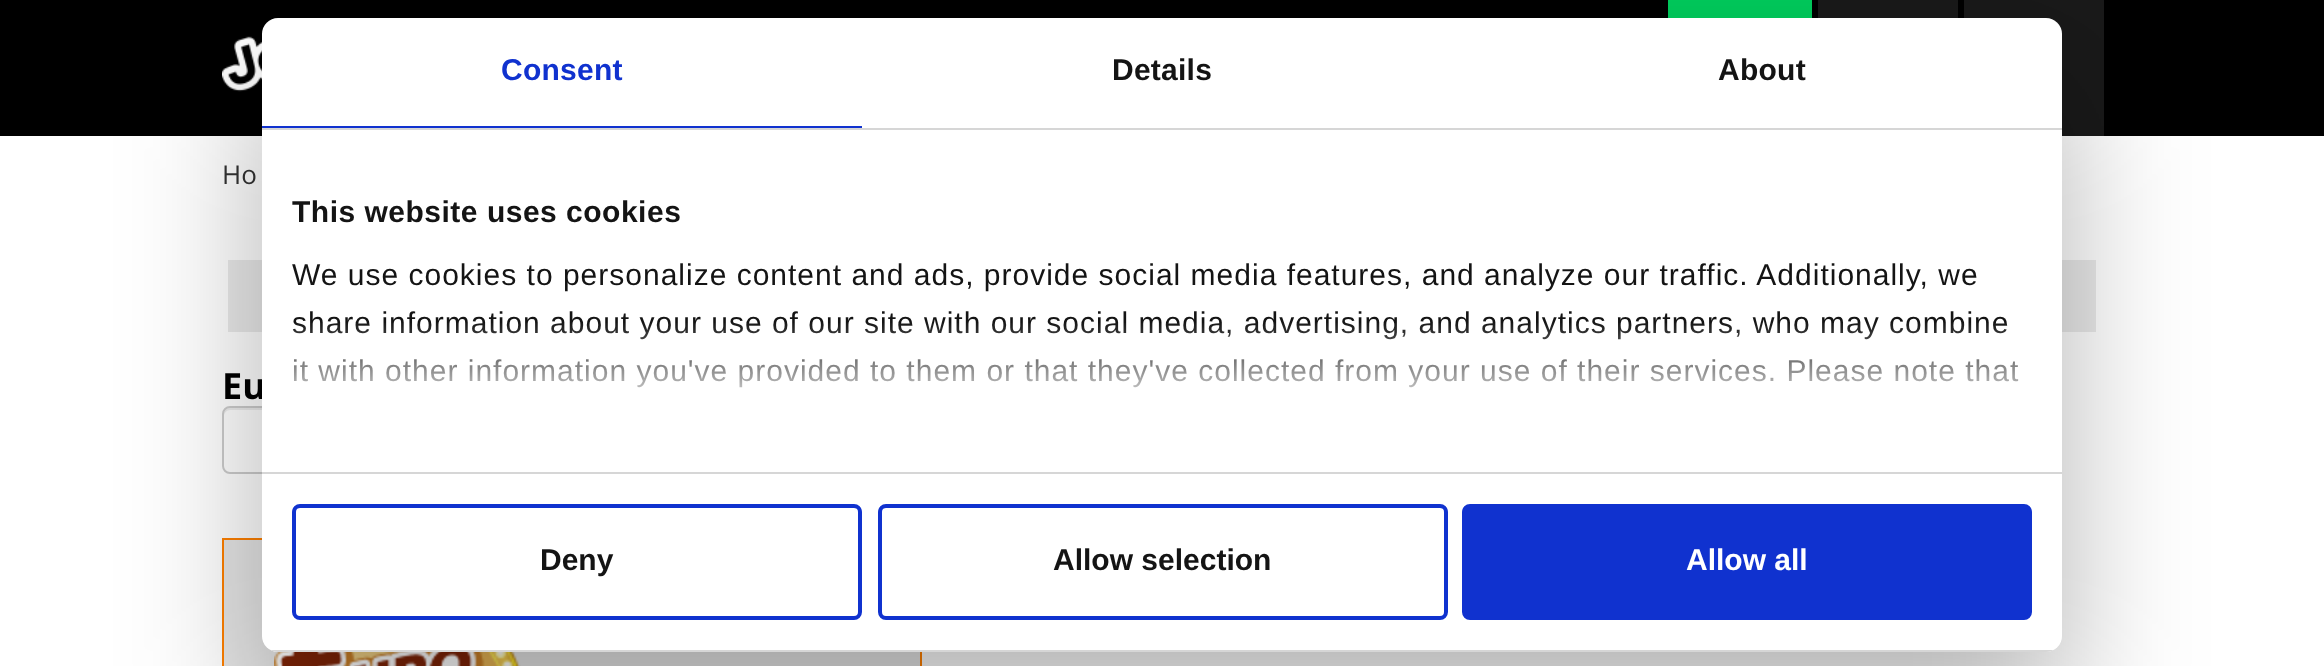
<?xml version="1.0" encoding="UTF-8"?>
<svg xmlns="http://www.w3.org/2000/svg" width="2324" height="666">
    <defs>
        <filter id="blur1" x="-50%" y="-200%" width="200%" height="500%"><feGaussianBlur stdDeviation="68"/></filter>
        <linearGradient id="g1" gradientUnits="userSpaceOnUse" x1="1149" y1="471" x2="1149" y2="321"><stop offset="0" stop-color="#FFFFFF"/><stop offset="0.5" stop-color="#FFFFFF" stop-opacity="0.8"/><stop offset="1" stop-color="#FFFFFF" stop-opacity="0"/></linearGradient>
        <clipPath id="clip1"><rect x="262" y="18" width="1800" height="634" rx="16"/></clipPath>
    </defs>
    <rect width="100%" height="100%" fill="#FFFFFF"/>
    <rect x="0" y="0" width="2324" height="136" fill="#000000"/>
    <image x="222" y="36" width="40" height="56" href="img_01.png"/>
    <rect x="1668" y="0" width="144" height="18" fill="#00CC5C"/>
    <rect x="1818" y="0" width="140" height="18" fill="#191919"/>
    <rect x="1964" y="0" width="140" height="136" fill="#191919"/>
    <text x="222" y="184" font-family="Open Sans" font-size="26" fill="#333333">Ho</text>
    <rect x="228" y="260" width="34" height="72" fill="#EAEAEA"/>
    <rect x="2062" y="260" width="34" height="72" fill="#EAEAEA"/>
    <text x="222" y="399" font-family="Open Sans" font-size="36" font-weight="700" fill="#000000">Eu</text>
    <path d="M 230 410 H 914 C 917 410 920 413 920 416 V 414 C 920 411 917 408 914 408 H 230 C 227 408 224 411 224 414 V 416 C 224 413 227 410 230 410 Z" fill="#ECECEC"/>
    <rect x="223" y="407" width="698" height="66" rx="7" fill="none" stroke="#CCCCCC" stroke-width="2"/>
    <rect x="223" y="539" width="698" height="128" fill="#E6E6E6" stroke="#FF8000" stroke-width="2"/>
    <image x="274" y="651" width="247" height="15" href="img_02.png"/>
    <rect x="262" y="82" width="1800" height="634" rx="16" fill="#000000" fill-opacity="0.3" filter="url(#blur1)"/>
    <rect x="262" y="18" width="1800" height="634" rx="16" fill="#FFFFFF"/>
    <rect x="262" y="128" width="1800" height="2" fill="#D6D6D6"/>
    <rect x="262" y="126" width="600" height="2" fill="#1032CF"/>
    <text x="501" y="80" font-family="Liberation Sans" font-size="30" font-weight="700" letter-spacing="0.25" fill="#1032CF">Consent</text>
    <text x="1112" y="80" font-family="Liberation Sans" font-size="30" font-weight="700" letter-spacing="0.25" fill="#141414">Details</text>
    <text x="1718" y="80" font-family="Liberation Sans" font-size="30" font-weight="700" letter-spacing="0.25" fill="#141414">About</text>
    <rect x="262" y="472" width="1800" height="2" fill="#D6D6D6"/>
    <text x="292" y="222" font-family="Liberation Sans" font-size="30" font-weight="700" letter-spacing="0.5" fill="#141414">This website uses cookies</text>
    <text font-family="Liberation Sans" font-size="30" letter-spacing="1" fill="#141414">
        <tspan x="292" y="285">We use cookies to personalize content and ads, provide social media features, and analyze our traffic. Additionally, we</tspan>
        <tspan x="292" y="333">share information about your use of our site with our social media, advertising, and analytics partners, who may combine</tspan>
        <tspan x="292" y="381">it with other information you've provided to them or that they've collected from your use of their services. Please note that</tspan>
    </text>
    <rect x="293" y="323" width="1726" height="65" fill="url(#g1)"/>
    <g clip-path="url(#clip1)">
        <rect x="262" y="650" width="1800" height="2" fill="#D6D6D6"/>
    </g>
    <rect x="294" y="506" width="566" height="112" rx="6" fill="none" stroke="#1032CF" stroke-width="4"/>
    <text x="540" y="570" font-family="Liberation Sans" font-size="30" font-weight="700" fill="#141414">Deny</text>
    <rect x="880" y="506" width="566" height="112" rx="6" fill="none" stroke="#1032CF" stroke-width="4"/>
    <text x="1053" y="570" font-family="Liberation Sans" font-size="30" font-weight="700" fill="#141414">Allow selection</text>
    <rect x="1464" y="506" width="566" height="112" rx="6" fill="#1032CF" stroke="#1032CF" stroke-width="4"/>
    <text x="1686" y="570" font-family="Liberation Sans" font-size="30" font-weight="700" fill="#FFFFFF">Allow all</text>
</svg>
